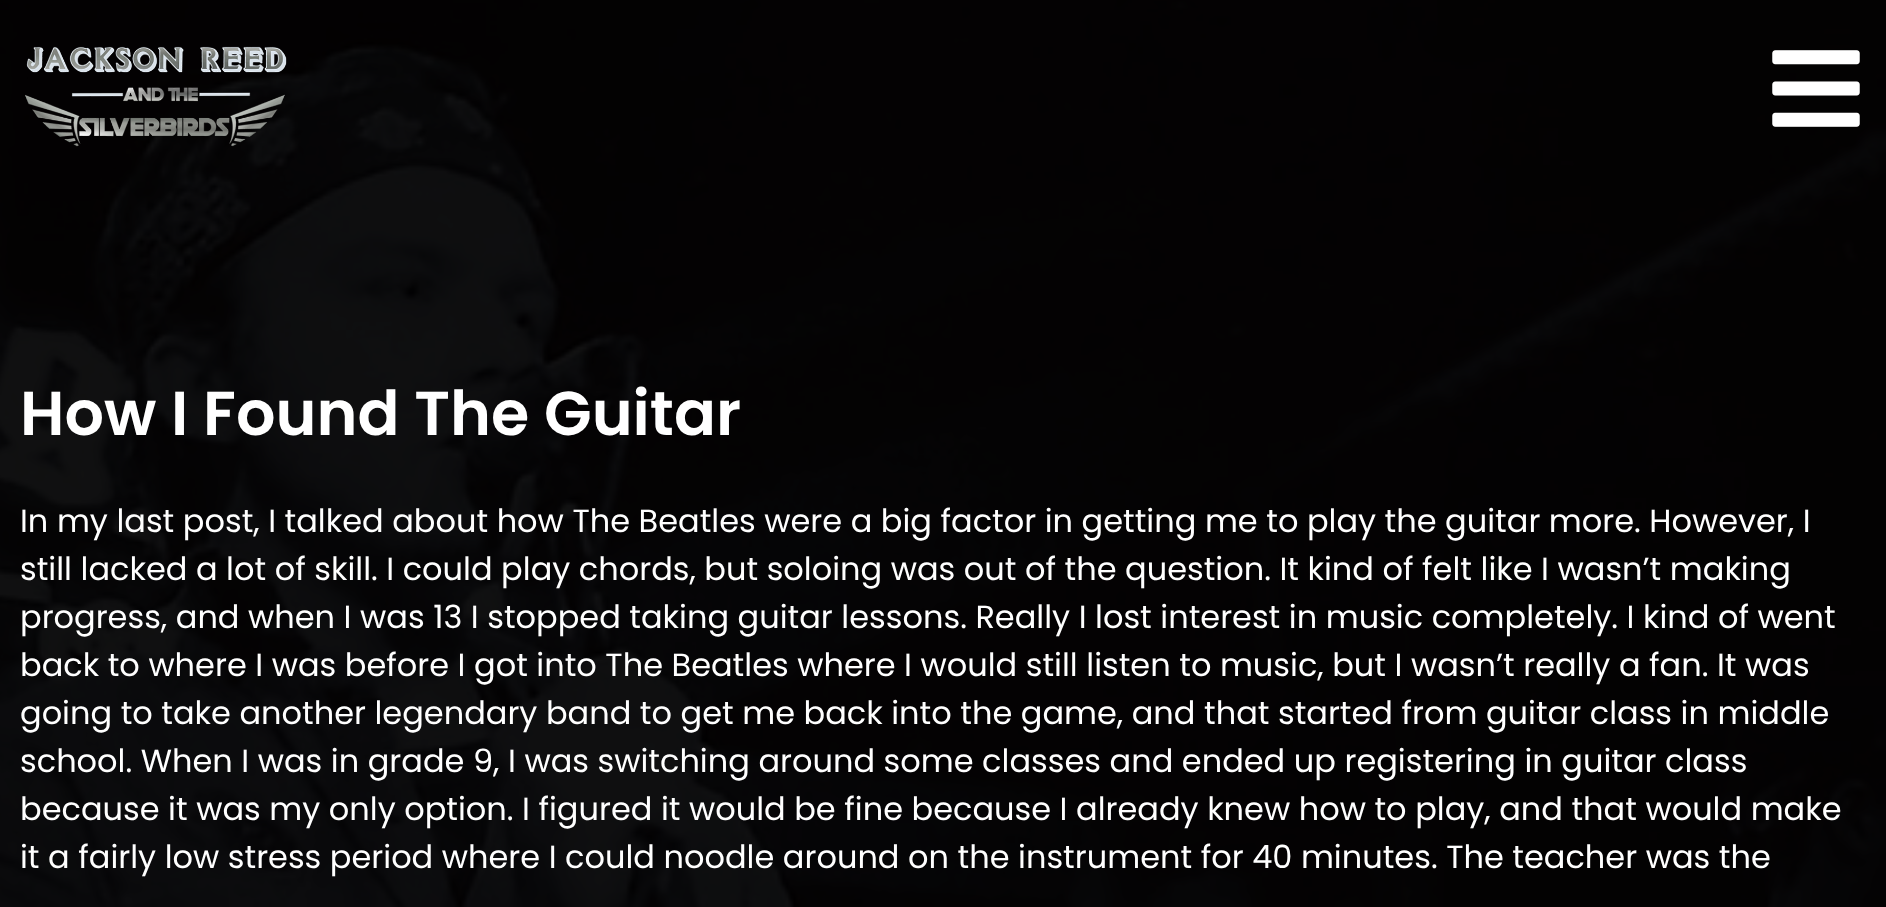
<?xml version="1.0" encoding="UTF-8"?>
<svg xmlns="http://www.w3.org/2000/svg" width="1886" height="907">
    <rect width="100%" height="100%" fill="#FFFFFF"/>
    <image x="0" y="0" width="1886" height="907" href="img_03.png"/>
    <image x="25" y="46" width="262" height="101" href="img_01.png"/>
    <image x="1772" y="50" width="88" height="77" href="img_02.png"/>
    <text x="20" y="435" font-family="Poppins" font-size="62" font-weight="600" fill="#FFFFFF">How I Found The Guitar</text>
    <text font-family="Poppins" font-size="32" fill="#FFFFFF">
        <tspan x="20" y="532">In my last post, I talked about how The Beatles were a big factor in getting me to play the guitar more. However, I</tspan>
        <tspan x="20" y="580">still lacked a lot of skill. I could play chords, but soloing was out of the question. It kind of felt like I wasn’t making</tspan>
        <tspan x="20" y="628">progress, and when I was 13 I stopped taking guitar lessons. Really I lost interest in music completely. I kind of went</tspan>
        <tspan x="20" y="676">back to where I was before I got into The Beatles where I would still listen to music, but I wasn’t really a fan. It was</tspan>
        <tspan x="20" y="724">going to take another legendary band to get me back into the game, and that started from guitar class in middle</tspan>
        <tspan x="20" y="772">school. When I was in grade 9, I was switching around some classes and ended up registering in guitar class</tspan>
        <tspan x="20" y="820">because it was my only option. I figured it would be fine because I already knew how to play, and that would make</tspan>
        <tspan x="20" y="868">it a fairly low stress period where I could noodle around on the instrument for 40 minutes. The teacher was the</tspan>
    </text>
</svg>
